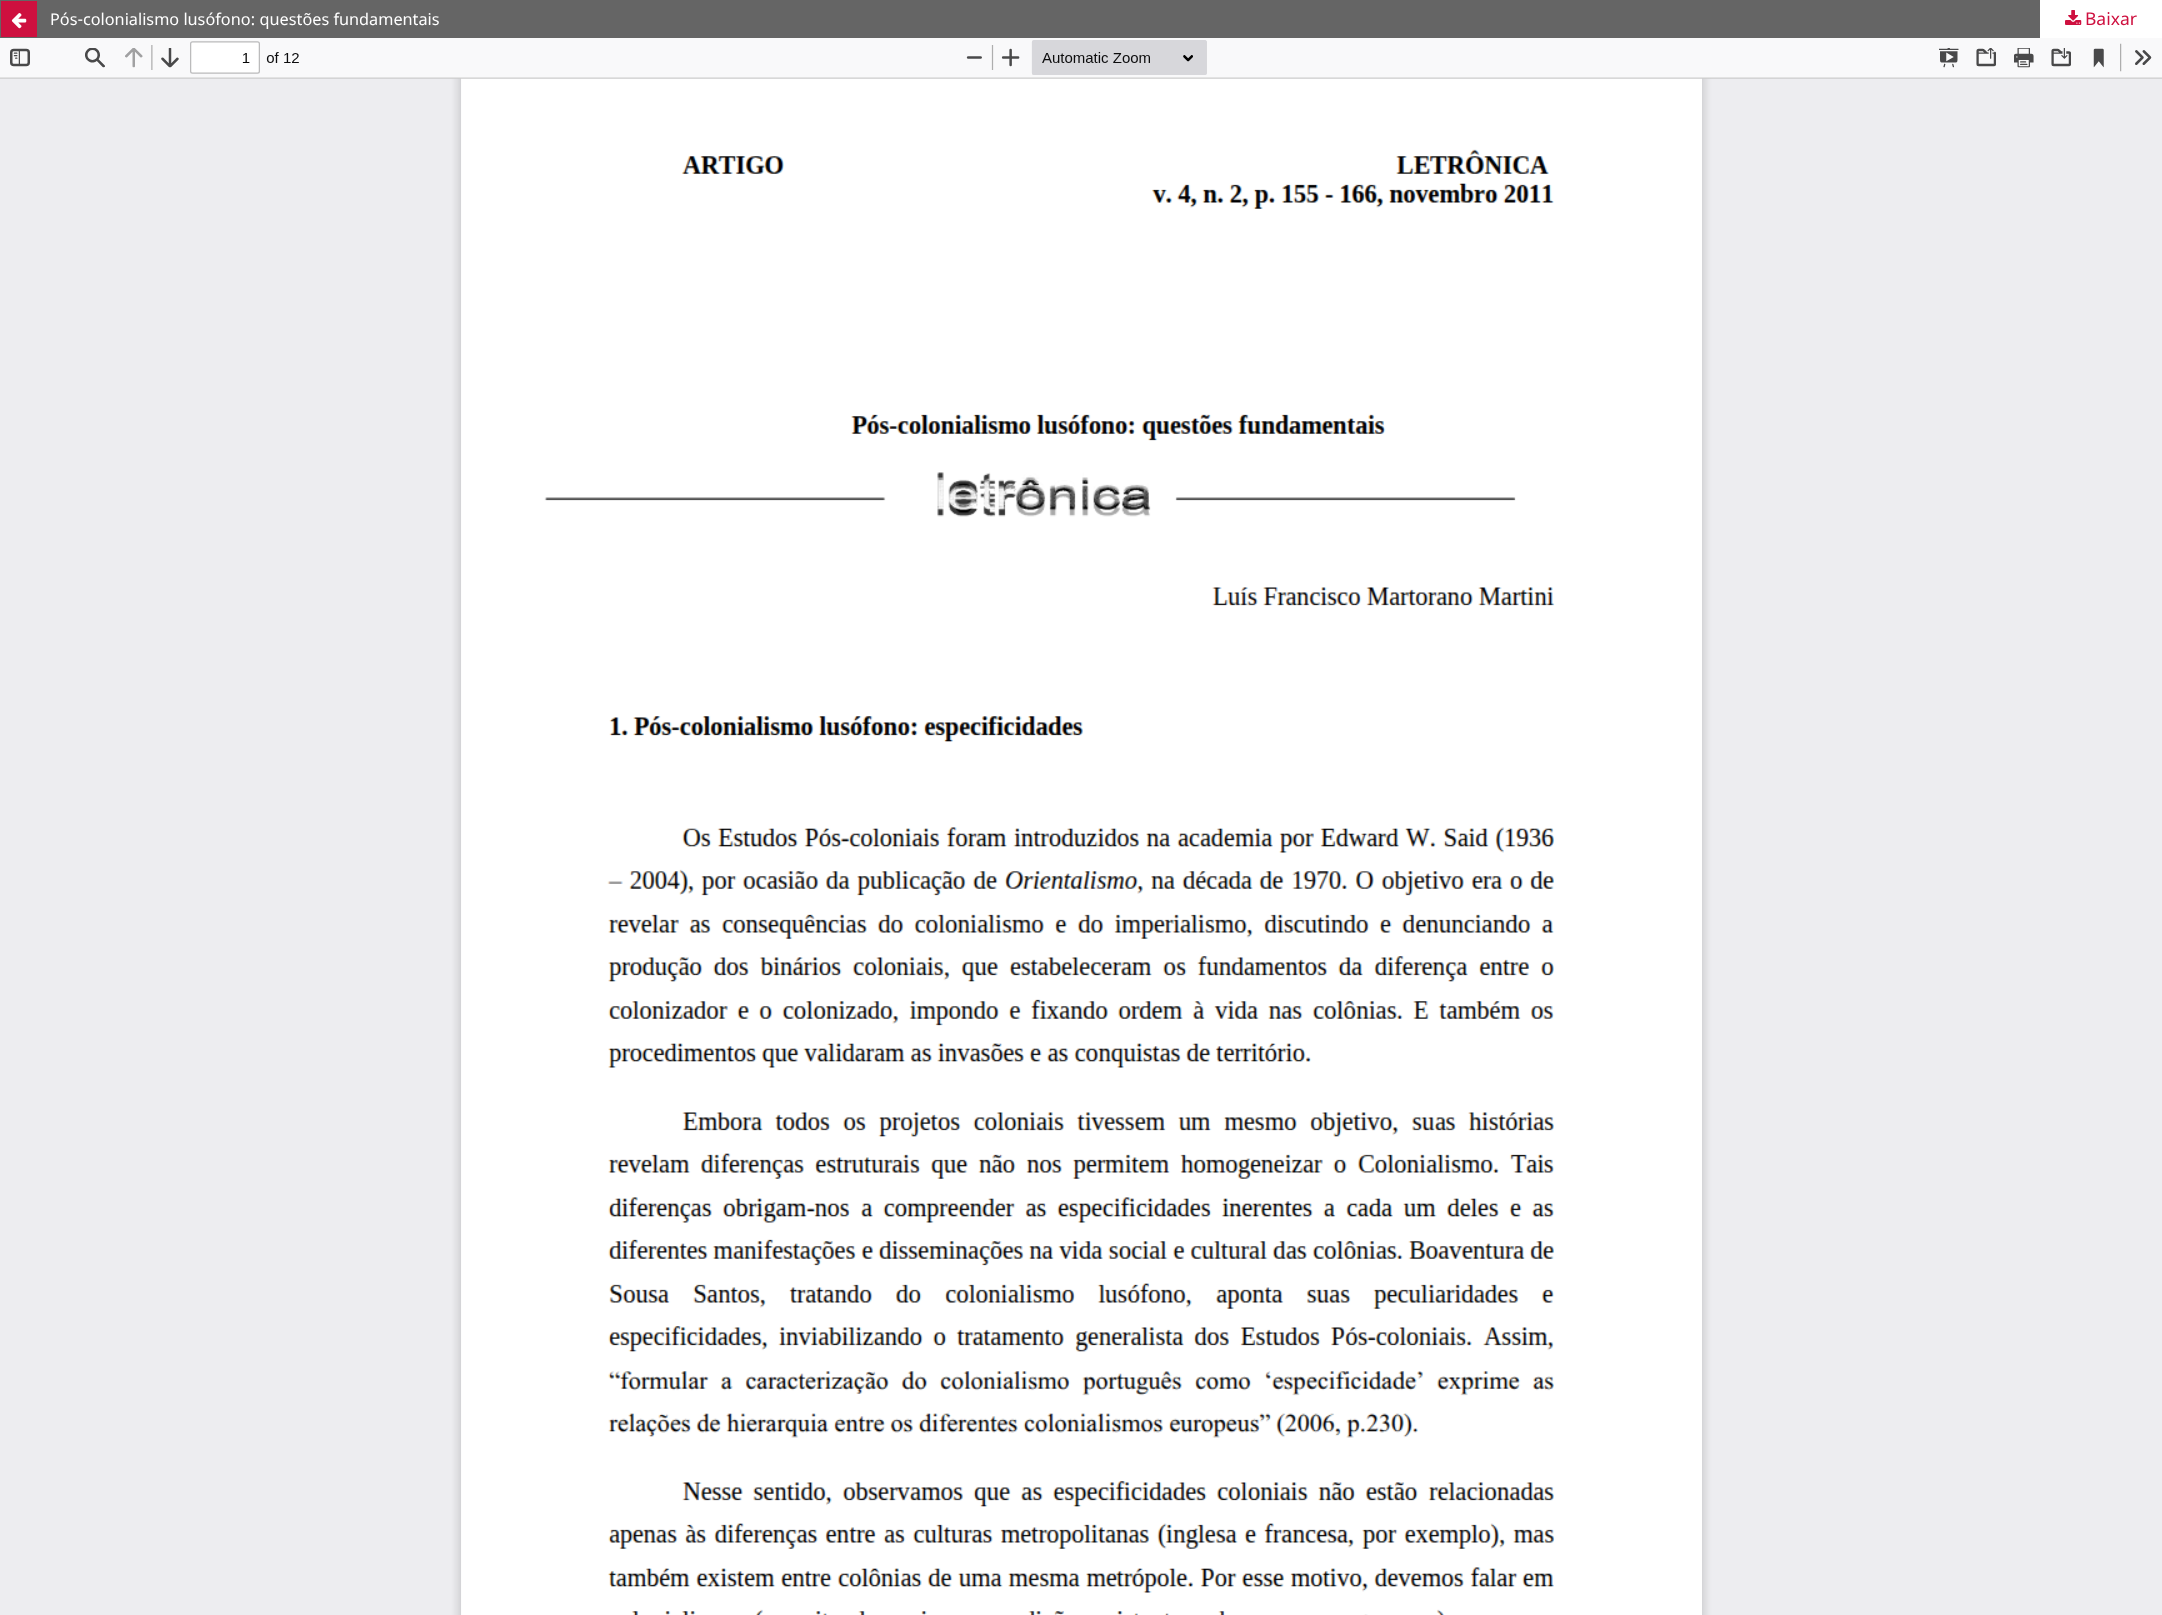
<?xml version="1.0" encoding="UTF-8"?>
<svg xmlns="http://www.w3.org/2000/svg" width="2162" height="1615">
    <rect width="100%" height="100%" fill="#FFFFFF"/>
    <rect x="38" y="0" width="2002" height="38" fill="#656565"/>
    <rect x="0.5" y="0.5" width="37" height="37" fill="#CE103F" stroke="#656565"/>
    <image x="11" y="13" width="16" height="16" href="img_01.png"/>
    <text x="50" y="25" font-family="Noto Sans" font-size="16.25" fill="#FFFFFF">Pós-colonialismo lusófono: questões fundamentais</text>
    <image x="2065" y="10" width="17" height="15" href="img_02.png"/>
    <text x="2085" y="25" font-family="Noto Sans" font-size="17.5" fill="#CE103F">Baixar</text>
    <image x="0" y="38" width="2162" height="1577" href="img_03.png"/>
</svg>
